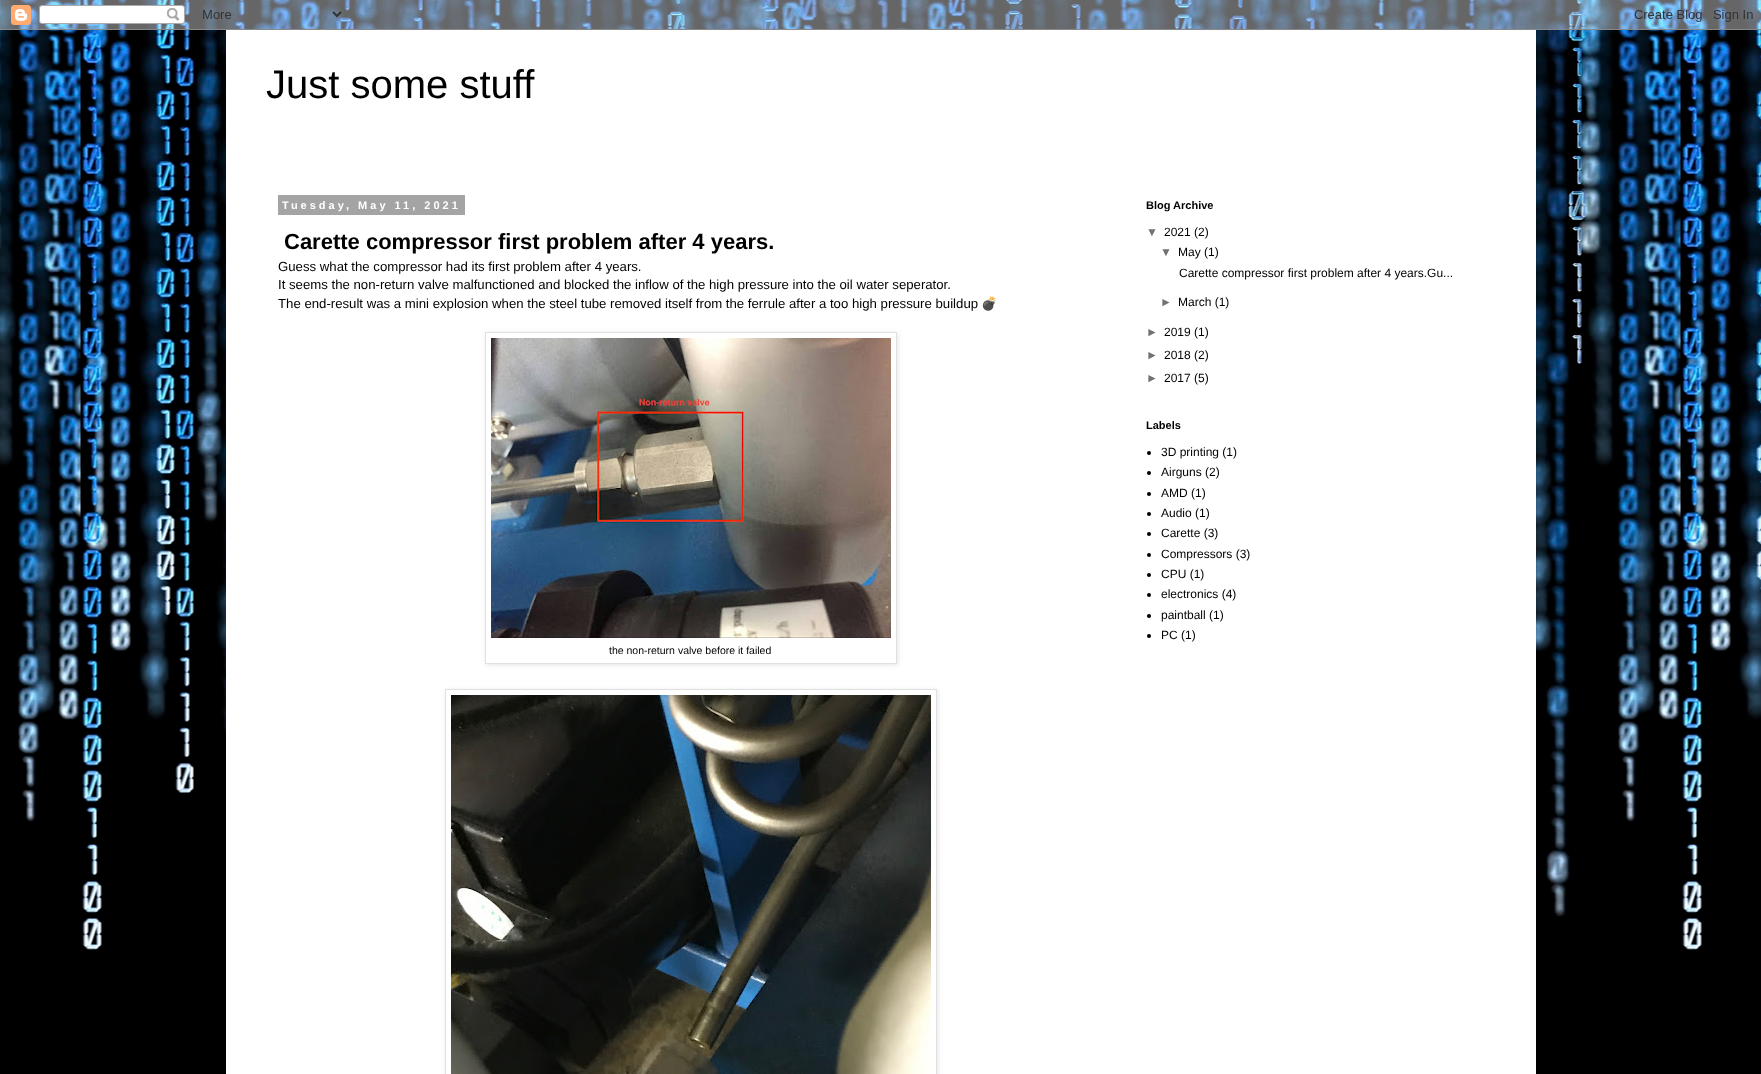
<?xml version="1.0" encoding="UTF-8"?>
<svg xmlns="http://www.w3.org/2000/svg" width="1761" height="1074">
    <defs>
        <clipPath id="clip1"><path d="M 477 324 H 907 V 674 H 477 Z M 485 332 H 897 V 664 H 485 Z" clip-rule="evenodd"/></clipPath>
        <filter id="blur1" x="-50%" y="-200%" width="200%" height="500%"><feGaussianBlur stdDeviation="2.5"/></filter>
        <clipPath id="clip2"><path d="M 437 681 H 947 V 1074 H 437 Z M 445 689 H 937 V 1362 H 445 Z" clip-rule="evenodd"/></clipPath>
    </defs>
    <rect width="100%" height="100%" fill="#000000"/>
    <image x="0" y="0" width="1761" height="950" href="img_01.png"/>
    <image x="0" y="0" width="1761" height="30" href="img_02.png"/>
    <rect x="226" y="30" width="1310" height="1044" fill="#FFFFFF"/>
    <text x="266" y="98" font-family="Liberation Sans" font-size="40" fill="#000000">Just some stuff</text>
    <rect x="278" y="195" width="187" height="20" fill="#A4A4A4"/>
    <text x="282" y="209" font-family="Liberation Sans" font-size="11" font-weight="700" letter-spacing="3" fill="#FFFFFF">Tuesday, May 11, 2021</text>
    <text x="284" y="249" font-family="Liberation Sans" font-size="22" font-weight="700" fill="#000000">Carette compressor first problem after 4 years.</text>
    <text font-family="Liberation Sans" font-size="13.2" fill="#000000">
        <tspan x="278" y="271">Guess what the compressor had its first problem after 4 years.</tspan>
        <tspan x="278" y="289">It seems the non-return valve malfunctioned and blocked the inflow of the high pressure into the oil water seperator.</tspan>
        <tspan x="278" y="308">The end-result was a mini explosion when the steel tube removed itself from the ferrule after a too high pressure buildup</tspan>
    </text>
    <text x="981" y="308" font-family="Noto Color Emoji" font-size="13.2" fill="#000000">💣</text>
    <g clip-path="url(#clip1)">
        <rect x="486" y="333" width="412" height="332" fill="#000000" fill-opacity="0.1" filter="url(#blur1)"/>
    </g>
    <rect x="485.5" y="332.5" width="411" height="331" fill="none" stroke="#E0E0E0"/>
    <image x="491" y="338" width="400" height="300" href="img_03.png"/>
    <text x="609" y="654" font-family="Liberation Sans" font-size="10.5" fill="#000000">the non-return valve before it failed</text>
    <g clip-path="url(#clip2)">
        <rect x="446" y="690" width="492" height="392" fill="#000000" fill-opacity="0.1" filter="url(#blur1)"/>
    </g>
    <rect x="445.5" y="689.5" width="491" height="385" fill="none" stroke="#E0E0E0"/>
    <image x="451" y="695" width="480" height="379" href="img_04.png"/>
    <text x="1146" y="209" font-family="Liberation Sans" font-size="11" font-weight="700" fill="#000000">Blog Archive</text>
    <text x="1146" y="236" font-family="Liberation Sans" font-size="12" fill="#727272">▼</text>
    <text x="1164" y="236" font-family="Liberation Sans" font-size="12" fill="#000000">2021 (2)</text>
    <text x="1160" y="256" font-family="Liberation Sans" font-size="12" fill="#727272">▼</text>
    <text x="1178" y="256" font-family="Liberation Sans" font-size="12" fill="#000000">May (1)</text>
    <text x="1179" y="277" font-family="Liberation Sans" font-size="12" fill="#000000">Carette compressor first problem after 4 years.Gu...</text>
    <text x="1160" y="306" font-family="Liberation Sans" font-size="12" fill="#727272">►</text>
    <text x="1178" y="306" font-family="Liberation Sans" font-size="12" fill="#000000">March (1)</text>
    <text x="1146" y="336" font-family="Liberation Sans" font-size="12" fill="#727272">►</text>
    <text x="1164" y="336" font-family="Liberation Sans" font-size="12" fill="#000000">2019 (1)</text>
    <text x="1146" y="359" font-family="Liberation Sans" font-size="12" fill="#727272">►</text>
    <text x="1164" y="359" font-family="Liberation Sans" font-size="12" fill="#000000">2018 (2)</text>
    <text x="1146" y="382" font-family="Liberation Sans" font-size="12" fill="#727272">►</text>
    <text x="1164" y="382" font-family="Liberation Sans" font-size="12" fill="#000000">2017 (5)</text>
    <text x="1146" y="429" font-family="Liberation Sans" font-size="11" font-weight="700" fill="#000000">Labels</text>
    <circle cx="1149" cy="453" r="2" fill="#000000"/>
    <text x="1161" y="456" font-family="Liberation Sans" font-size="12" fill="#000000">3D printing (1)</text>
    <circle cx="1149" cy="473" r="2" fill="#000000"/>
    <text x="1161" y="476" font-family="Liberation Sans" font-size="12" fill="#000000">Airguns (2)</text>
    <circle cx="1149" cy="494" r="2" fill="#000000"/>
    <text x="1161" y="497" font-family="Liberation Sans" font-size="12" fill="#000000">AMD (1)</text>
    <circle cx="1149" cy="514" r="2" fill="#000000"/>
    <text x="1161" y="517" font-family="Liberation Sans" font-size="12" fill="#000000">Audio (1)</text>
    <circle cx="1149" cy="534" r="2" fill="#000000"/>
    <text x="1161" y="537" font-family="Liberation Sans" font-size="12" fill="#000000">Carette (3)</text>
    <circle cx="1149" cy="555" r="2" fill="#000000"/>
    <text x="1161" y="558" font-family="Liberation Sans" font-size="12" fill="#000000">Compressors (3)</text>
    <circle cx="1149" cy="575" r="2" fill="#000000"/>
    <text x="1161" y="578" font-family="Liberation Sans" font-size="12" fill="#000000">CPU (1)</text>
    <circle cx="1149" cy="595" r="2" fill="#000000"/>
    <text x="1161" y="598" font-family="Liberation Sans" font-size="12" fill="#000000">electronics (4)</text>
    <circle cx="1149" cy="616" r="2" fill="#000000"/>
    <text x="1161" y="619" font-family="Liberation Sans" font-size="12" fill="#000000">paintball (1)</text>
    <circle cx="1149" cy="636" r="2" fill="#000000"/>
    <text x="1161" y="639" font-family="Liberation Sans" font-size="12" fill="#000000">PC (1)</text>
</svg>
